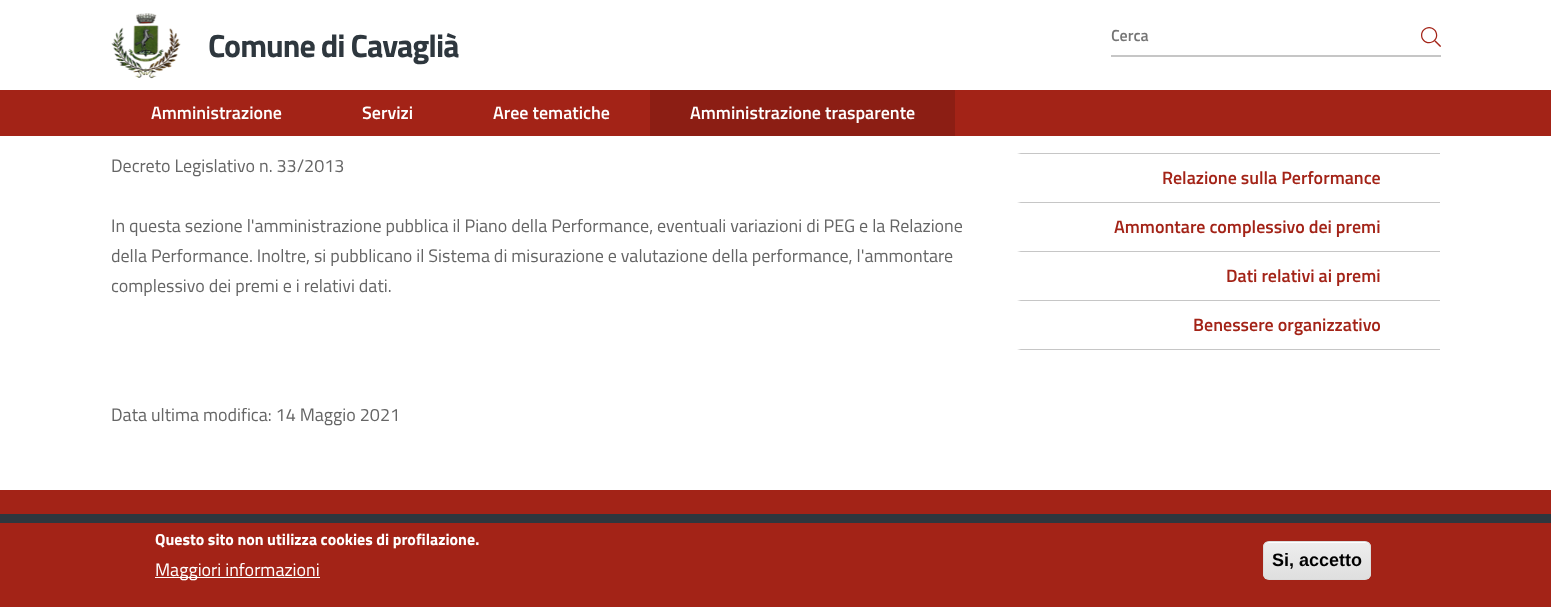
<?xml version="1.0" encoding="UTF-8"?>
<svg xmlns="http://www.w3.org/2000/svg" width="1551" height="607">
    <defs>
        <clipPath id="clip1"><rect x="1263" y="541" width="108" height="39" rx="6"/></clipPath>
        <linearGradient id="g1" gradientUnits="userSpaceOnUse" x1="1317" y1="542" x2="1317" y2="579"><stop offset="0.05" stop-color="#EDEDED"/><stop offset="1" stop-color="#DFDFDF"/></linearGradient>
    </defs>
    <rect width="100%" height="100%" fill="#FFFFFF"/>
    <image x="111" y="13" width="70" height="66" href="img_01.png"/>
    <text x="208" y="57" font-family="Titillium Web" font-size="32" font-weight="700" letter-spacing="-1" fill="#2E373E">Comune di Cavaglià</text>
    <rect x="1111" y="55" width="330" height="2" fill="#C6C6C6"/>
    <text x="1111" y="41" font-family="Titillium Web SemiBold" font-size="16" font-weight="600" fill="#757575">Cerca</text>
    <image x="1421" y="27" width="20" height="20" href="img_02.png"/>
    <rect x="0" y="90" width="1551" height="46" fill="#A32317"/>
    <text x="151" y="119" font-family="Titillium Web SemiBold" font-size="18" font-weight="600" fill="#FFFFFF">Amministrazione</text>
    <text x="362" y="119" font-family="Titillium Web SemiBold" font-size="18" font-weight="600" fill="#FFFFFF">Servizi</text>
    <text x="493" y="119" font-family="Titillium Web SemiBold" font-size="18" font-weight="600" fill="#FFFFFF">Aree tematiche</text>
    <rect x="650" y="90" width="305" height="46" fill="#8C1E14"/>
    <text x="690" y="119" font-family="Titillium Web SemiBold" font-size="18" font-weight="600" fill="#FFFFFF">Amministrazione trasparente</text>
    <text x="111" y="172" font-family="Titillium Web" font-size="18" fill="#656565">Decreto Legislativo n. 33/2013</text>
    <text font-family="Titillium Web" font-size="18" fill="#656565">
        <tspan x="111" y="232">In questa sezione l'amministrazione pubblica il Piano della Performance, eventuali variazioni di PEG e la Relazione</tspan>
        <tspan x="111" y="262">della Performance. Inoltre, si pubblicano il Sistema di misurazione e valutazione della performance, l'ammontare</tspan>
        <tspan x="111" y="292">complessivo dei premi e i relativi dati.</tspan>
    </text>
    <text x="111" y="421" font-family="Titillium Web" font-size="18" fill="#656565">Data ultima modifica: 14 Maggio 2021</text>
    <path d="M 1440 154 H 1017 L 1021 153 H 1440 Z" fill="#C6C6C6"/>
    <path d="M 1440 203 H 1017 L 1021 202 H 1440 Z" fill="#C6C6C6"/>
    <text x="1162" y="184" font-family="Titillium Web SemiBold" font-size="18" font-weight="600" fill="#A32317">Relazione sulla Performance</text>
    <path d="M 1440 252 H 1017 L 1021 251 H 1440 Z" fill="#C6C6C6"/>
    <text x="1114" y="233" font-family="Titillium Web SemiBold" font-size="18" font-weight="600" fill="#A32317">Ammontare complessivo dei premi</text>
    <path d="M 1440 301 H 1017 L 1021 300 H 1440 Z" fill="#C6C6C6"/>
    <text x="1226" y="282" font-family="Titillium Web SemiBold" font-size="18" font-weight="600" fill="#A32317">Dati relativi ai premi</text>
    <path d="M 1440 350 H 1017 L 1021 349 H 1440 Z" fill="#C6C6C6"/>
    <text x="1193" y="331" font-family="Titillium Web SemiBold" font-size="18" font-weight="600" fill="#A32317">Benessere organizzativo</text>
    <rect x="0" y="490" width="1551" height="24" fill="#A32317"/>
    <rect x="0" y="514" width="1551" height="9" fill="#2E373E"/>
    <rect x="0" y="523" width="1551" height="84" fill="#A32317"/>
    <text x="155" y="545" font-family="Titillium Web" font-size="16" font-weight="700" fill="#FFFFFF">Questo sito non utilizza cookies di profilazione.</text>
    <rect x="155" y="577" width="165" height="1" fill="#FFFFFF"/>
    <text x="155" y="576" font-family="Titillium Web" font-size="18" fill="#FFFFFF">Maggiori informazioni</text>
    <g clip-path="url(#clip1)">
        <rect x="1263" y="542" width="108" height="37" fill="url(#g1)"/>
    </g>
    <path d="M 1269 543 H 1365 C 1368 543 1370 545 1370 548 C 1370 538 1354 542 1349 542 H 1285 C 1280 542 1264 538 1264 548 C 1264 545 1266 543 1269 543 Z" fill="#FFFFFF"/>
    <rect x="1263.5" y="541.5" width="107" height="38" rx="5.5" fill="none" stroke="#DCDCDC"/>
    <text x="1272" y="566" font-family="Liberation Sans" font-size="18" font-weight="700" fill="#000000">Si, accetto</text>
</svg>
